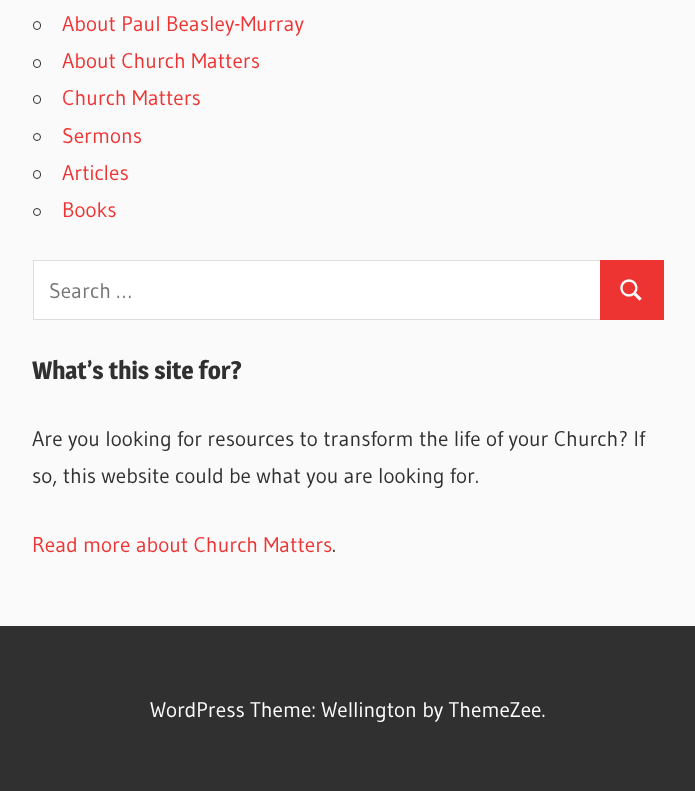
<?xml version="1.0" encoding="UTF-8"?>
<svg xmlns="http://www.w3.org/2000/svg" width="695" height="791">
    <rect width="100%" height="100%" fill="#FAFAFA"/>
    <rect x="33.5" y="21.5" width="7" height="8" rx="3.5" fill="none" stroke="#303030"/>
    <text x="62" y="31" font-family="Gudea" font-size="21.25" fill="#EE3333">About Paul Beasley-Murray</text>
    <rect x="33.5" y="59.5" width="7" height="8" rx="3.5" fill="none" stroke="#303030"/>
    <text x="62" y="68" font-family="Gudea" font-size="21.25" fill="#EE3333">About Church Matters</text>
    <rect x="33.5" y="95.5" width="7" height="8" rx="3.5" fill="none" stroke="#303030"/>
    <text x="62" y="105" font-family="Gudea" font-size="21.25" fill="#EE3333">Church Matters</text>
    <circle cx="37" cy="137" r="3.5" fill="none" stroke="#303030"/>
    <text x="62" y="143" font-family="Gudea" font-size="21.25" fill="#EE3333">Sermons</text>
    <rect x="33.5" y="170.5" width="7" height="8" rx="3.5" fill="none" stroke="#303030"/>
    <text x="62" y="180" font-family="Gudea" font-size="21.25" fill="#EE3333">Articles</text>
    <circle cx="37" cy="212" r="3.5" fill="none" stroke="#303030"/>
    <text x="62" y="217" font-family="Gudea" font-size="21.25" fill="#EE3333">Books</text>
    <rect x="33.5" y="260.5" width="567" height="59" fill="#FFFFFF" stroke="#DDDDDD"/>
    <text x="49" y="298" font-family="Gudea" font-size="21.25" fill="#757575">Search …</text>
    <rect x="600" y="260" width="64" height="60" fill="#EE3333"/>
    <image x="620" y="279" width="22" height="22" href="img_01.png"/>
    <text x="32" y="379" font-family="Magra" font-size="25" font-weight="700" fill="#303030">What’s this site for?</text>
    <text font-family="Gudea" font-size="21.25" fill="#303030">
        <tspan x="32" y="446">Are you looking for resources to transform the life of your Church? If</tspan>
        <tspan x="32" y="483">so, this website could be what you are looking for.</tspan>
    </text>
    <text x="32" y="552" font-family="Gudea" font-size="21.25" fill="#EE3333">Read more about Church Matters</text>
    <text x="332" y="552" font-family="Gudea" font-size="21.25" fill="#303030">.</text>
    <rect x="0" y="626" width="695" height="165" fill="#303030"/>
    <text x="150" y="717" font-family="Gudea" font-size="21.25" fill="#FFFFFF">WordPress Theme: Wellington by ThemeZee.</text>
</svg>
